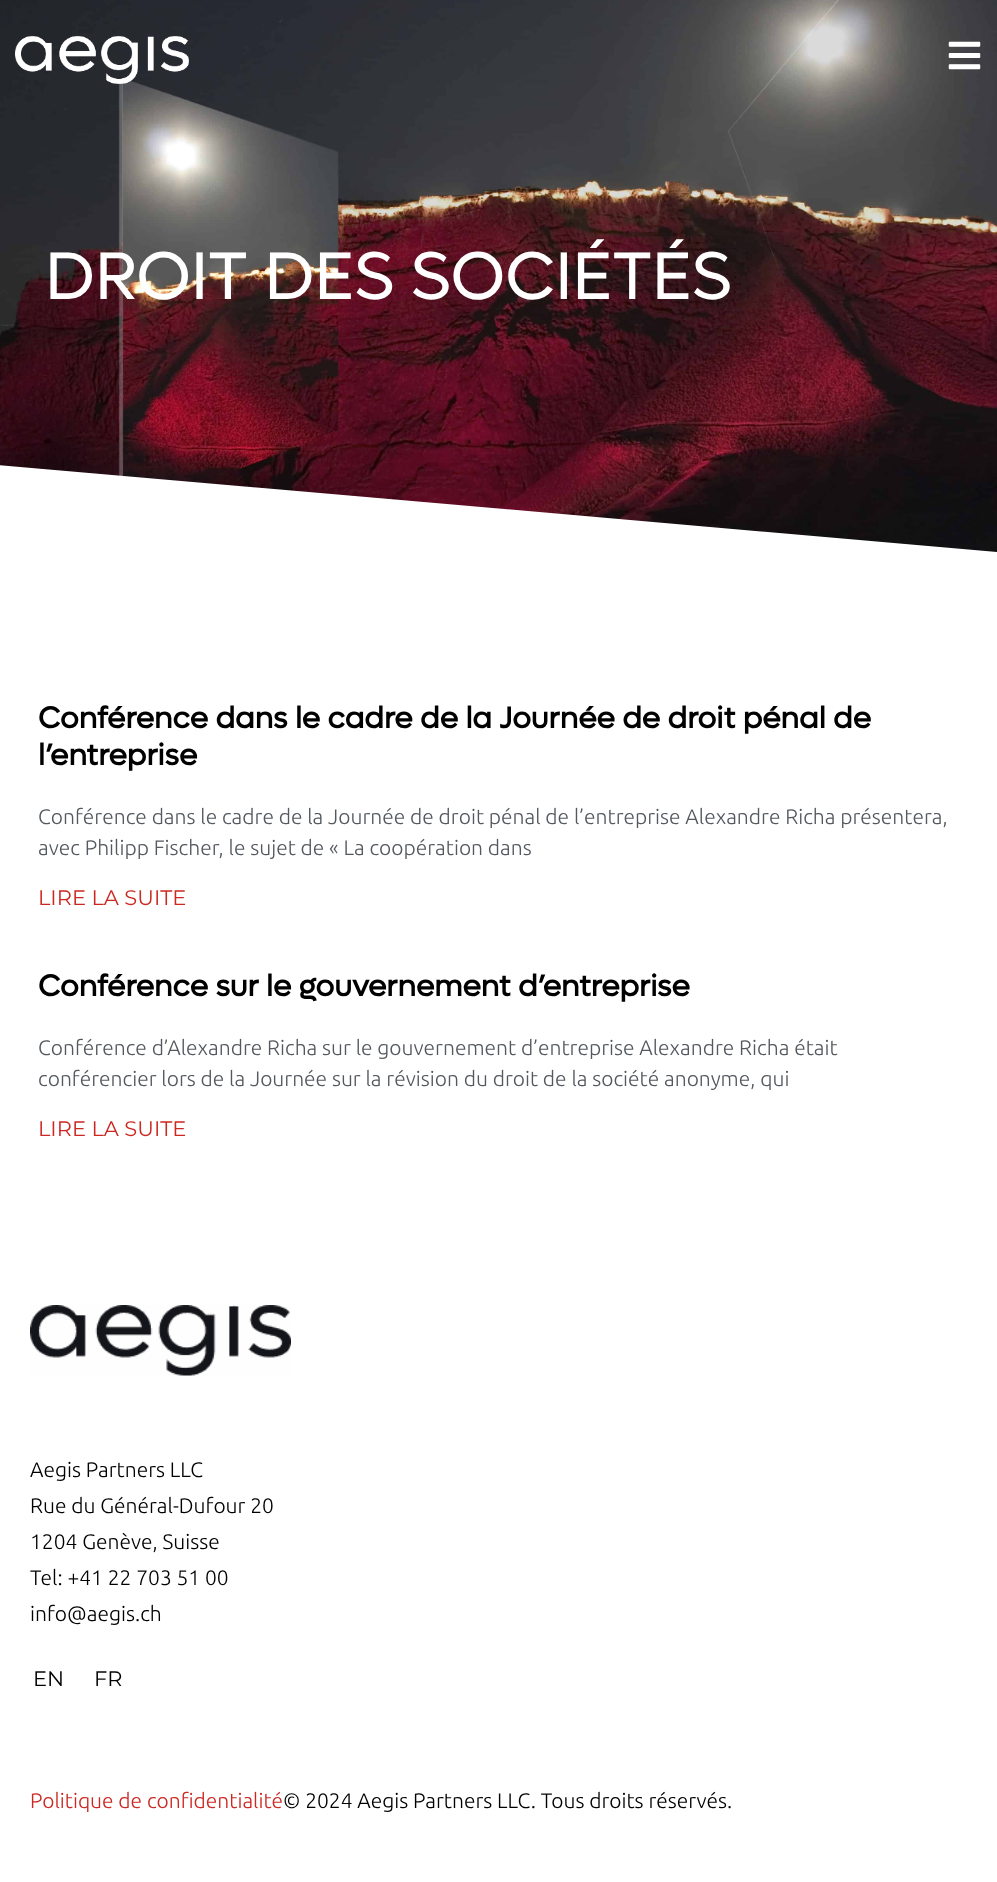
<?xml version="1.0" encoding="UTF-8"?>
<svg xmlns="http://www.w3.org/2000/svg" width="997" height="1882">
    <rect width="100%" height="100%" fill="#FFFFFF"/>
    <image x="0" y="0" width="997" height="552" href="img_03.png"/>
    <image x="15" y="36" width="174" height="48" href="img_01.png"/>
    <image x="948" y="41" width="33" height="29" href="img_02.png"/>
    <image x="728" y="0" width="111" height="336" href="img_04.png"/>
    <text x="45" y="299" font-family="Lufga" font-size="67.5" fill="#FFFFFF">DROIT DES SOCIÉTÉS</text>
    <path d="M 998 552 V 558 H -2 V 465 Z" fill="#FFFFFF"/>
    <text font-family="Lufga" font-size="30" font-weight="700" fill="#000000">
        <tspan x="38" y="728">Conférence dans le cadre de la Journée de droit pénal de</tspan>
        <tspan x="38" y="765">l’entreprise</tspan>
    </text>
    <text font-family="Ubuntu" font-size="21" font-weight="300" fill="#54595F">
        <tspan x="38" y="824">Conférence dans le cadre de la Journée de droit pénal de l’entreprise Alexandre Richa présentera,</tspan>
        <tspan x="38" y="855">avec Philipp Fischer, le sujet de « La coopération dans</tspan>
    </text>
    <text x="38" y="905" font-family="Montserrat" font-size="21" fill="#CC2822">LIRE LA SUITE</text>
    <text x="38" y="996" font-family="Lufga" font-size="30" font-weight="700" fill="#000000">Conférence sur le gouvernement d’entreprise</text>
    <text font-family="Ubuntu" font-size="21" font-weight="300" fill="#54595F">
        <tspan x="38" y="1055">Conférence d’Alexandre Richa sur le gouvernement d’entreprise Alexandre Richa était</tspan>
        <tspan x="38" y="1086">conférencier lors de la Journée sur la révision du droit de la société anonyme, qui</tspan>
    </text>
    <text x="38" y="1136" font-family="Montserrat" font-size="21" fill="#CC2822">LIRE LA SUITE</text>
    <image x="30" y="1305" width="261" height="71" href="img_05.png"/>
    <text font-family="Ubuntu" font-size="21" font-weight="300" fill="#000000">
        <tspan x="30" y="1477">Aegis Partners LLC</tspan>
        <tspan x="30" y="1513">Rue du Général-Dufour 20</tspan>
        <tspan x="30" y="1549">1204 Genève, Suisse</tspan>
        <tspan x="30" y="1585">Tel: +41 22 703 51 00</tspan>
        <tspan x="30" y="1621">info@aegis.ch</tspan>
    </text>
    <text x="33" y="1686" font-family="Montserrat" font-size="21" fill="#000000">EN</text>
    <text x="94" y="1686" font-family="Montserrat" font-size="21" fill="#000000">FR</text>
    <text x="30" y="1808" font-family="Ubuntu" font-size="21" font-weight="300" fill="#CC2822">Politique de confidentialité</text>
    <text x="283" y="1808" font-family="Ubuntu" font-size="21" font-weight="300" fill="#000000">© 2024 Aegis Partners LLC. Tous droits réservés.</text>
</svg>
